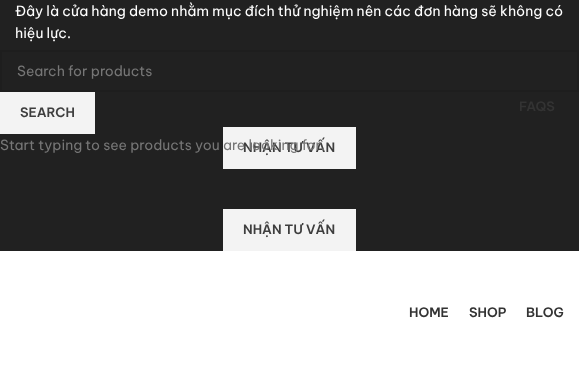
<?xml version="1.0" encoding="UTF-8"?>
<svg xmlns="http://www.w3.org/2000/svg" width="579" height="378">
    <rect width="100%" height="100%" fill="#FFFFFF"/>
    <rect x="0" y="0" width="579" height="251" fill="#212121"/>
    <text font-family="Be Vietnam Pro" font-size="14" fill="#FFFFFF">
        <tspan x="15" y="16">Đây là cửa hàng demo nhằm mục đích thử nghiệm nên các đơn hàng sẽ không có</tspan>
        <tspan x="15" y="38">hiệu lực.</tspan>
    </text>
    <text x="519" y="111" font-family="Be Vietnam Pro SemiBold" font-size="13" font-weight="600" fill="#333333">FAQS</text>
    <rect x="223" y="127" width="133" height="42" fill="#F3F3F3"/>
    <text x="243" y="152" font-family="Be Vietnam Pro SemiBold" font-size="13" font-weight="600" fill="#3E3E3E">NHẬN TƯ VẤN</text>
    <rect x="223" y="209" width="133" height="42" fill="#F3F3F3"/>
    <text x="243" y="234" font-family="Be Vietnam Pro SemiBold" font-size="13" font-weight="600" fill="#3E3E3E">NHẬN TƯ VẤN</text>
    <text x="409" y="317" font-family="Be Vietnam Pro SemiBold" font-size="13" font-weight="600" fill="#333333">HOME</text>
    <text x="469" y="317" font-family="Be Vietnam Pro SemiBold" font-size="13" font-weight="600" fill="#333333">SHOP</text>
    <text x="526" y="317" font-family="Be Vietnam Pro SemiBold" font-size="13" font-weight="600" fill="#333333">BLOG</text>
    <rect x="1" y="51" width="577" height="40" fill="none" stroke="#1E1E1E" stroke-width="2"/>
    <text x="17" y="76" font-family="Be Vietnam Pro" font-size="14" fill="#767676">Search for products</text>
    <rect x="0" y="92" width="95" height="42" fill="#F3F3F3"/>
    <text x="20" y="117" font-family="Be Vietnam Pro SemiBold" font-size="13" font-weight="600" fill="#3E3E3E">SEARCH</text>
    <text x="0" y="150" font-family="Be Vietnam Pro" font-size="14" fill="#767676">Start typing to see products you are looking for.</text>
</svg>
